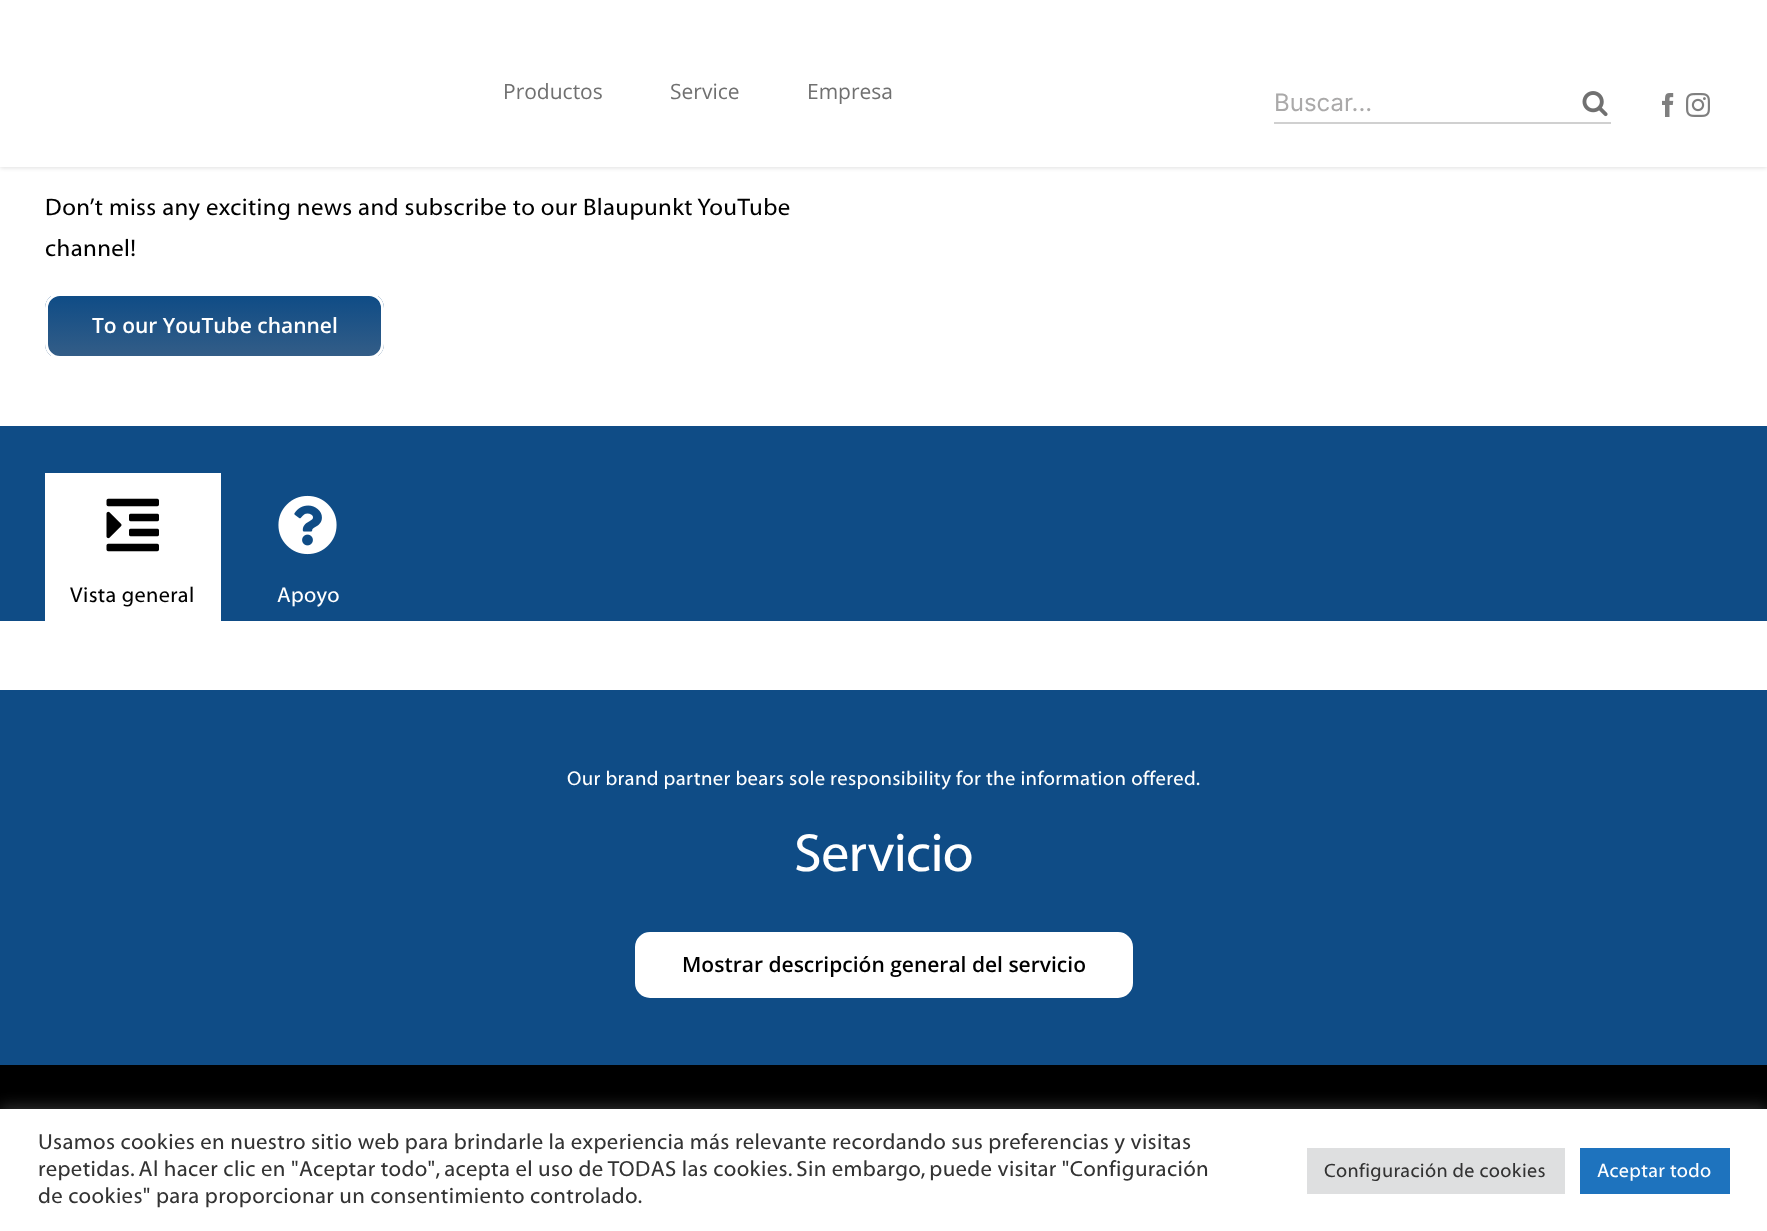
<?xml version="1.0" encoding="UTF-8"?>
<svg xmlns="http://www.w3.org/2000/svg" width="1767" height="1231">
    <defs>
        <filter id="blur1" x="-50%" y="-200%" width="200%" height="500%"><feGaussianBlur stdDeviation="2"/></filter>
        <clipPath id="clip1"><rect x="45" y="293" width="339" height="66" rx="15"/></clipPath>
        <linearGradient id="g1" gradientUnits="userSpaceOnUse" x1="215" y1="296" x2="215" y2="356"><stop offset="0" stop-color="#0F4C86"/><stop offset="1" stop-color="#335D87"/></linearGradient>
        <filter id="blur2" x="-50%" y="-200%" width="200%" height="500%"><feGaussianBlur stdDeviation="7.5"/></filter>
    </defs>
    <rect width="100%" height="100%" fill="#FFFFFF"/>
    <rect x="0" y="2" width="1767" height="166" fill="#000000" fill-opacity="0.12" filter="url(#blur1)"/>
    <rect x="0" y="0" width="1767" height="167" fill="#FFFFFF"/>
    <text x="503" y="99" font-family="Open Sans" font-size="21" fill="#707070">Productos</text>
    <text x="670" y="99" font-family="Open Sans" font-size="21" fill="#707070">Service</text>
    <text x="807" y="99" font-family="Open Sans" font-size="21" fill="#707070">Empresa</text>
    <text x="1274" y="111" font-family="Inter" font-size="24" fill="#AAA9A9">Buscar...</text>
    <rect x="1274" y="122" width="337" height="2" fill="#D0D0D0"/>
    <image x="1582" y="91" width="26" height="26" href="img_01.png"/>
    <image x="1662" y="93" width="12" height="24" href="img_02.png"/>
    <image x="1686" y="93" width="24" height="24" href="img_03.png"/>
    <text font-family="Myriad" font-size="24" letter-spacing="0.36" fill="#000000">
        <tspan x="45" y="215">Don’t miss any exciting news and subscribe to our Blaupunkt YouTube</tspan>
        <tspan x="45" y="256">channel!</tspan>
    </text>
    <g clip-path="url(#clip1)">
        <rect x="45" y="296" width="339" height="60" fill="url(#g1)"/>
    </g>
    <rect x="46.5" y="294.5" width="336" height="63" rx="13.5" fill="none" stroke="#FFFFFF" stroke-width="3"/>
    <text x="92" y="333" font-family="Open Sans" font-size="21" font-weight="600" fill="#FFFFFF">To our YouTube channel</text>
    <rect x="0" y="426" width="1767" height="195" fill="#0F4C86"/>
    <rect x="45" y="473" width="176" height="148" fill="#FFFFFF"/>
    <image x="106" y="498" width="53" height="54" href="img_04.png"/>
    <text x="70" y="602" font-family="Myriad" font-size="21.5" letter-spacing="0.36" fill="#000000">Vista general</text>
    <image x="278" y="495" width="59" height="60" href="img_05.png"/>
    <text x="277" y="602" font-family="Myriad" font-size="21.5" letter-spacing="0.36" fill="#FFFFFF">Apoyo</text>
    <rect x="0" y="690" width="1767" height="375" fill="#0F4C86"/>
    <text x="567" y="785" font-family="Myriad" font-size="20" letter-spacing="0.36" fill="#FFFFFF">Our brand partner bears sole responsibility for the information offered.</text>
    <text x="794" y="871" font-family="Myriad" font-size="54" letter-spacing="-0.75" fill="#FFFFFF">Servicio</text>
    <rect x="636.5" y="933.5" width="495" height="63" rx="13.5" fill="#FFFFFF" stroke="#FFFFFF" stroke-width="3"/>
    <text x="682" y="972" font-family="Open Sans" font-size="21" font-weight="600" fill="#000000">Mostrar descripción general del servicio</text>
    <rect x="0" y="1065" width="1767" height="44" fill="#000000"/>
    <rect x="0" y="1107" width="1767" height="123" fill="#ACABAB" fill-opacity="0.3" filter="url(#blur2)"/>
    <rect x="0" y="1109" width="1767" height="122" fill="#FFFFFF"/>
    <text font-family="Myriad" font-size="22" letter-spacing="0.36" fill="#333333">
        <tspan x="38" y="1149">Usamos cookies en nuestro sitio web para brindarle la experiencia más relevante recordando sus preferencias y visitas</tspan>
        <tspan x="38" y="1176">repetidas. Al hacer clic en "Aceptar todo", acepta el uso de TODAS las cookies. Sin embargo, puede visitar "Configuración</tspan>
        <tspan x="38" y="1203">de cookies" para proporcionar un consentimiento controlado.</tspan>
    </text>
    <rect x="1307" y="1148" width="258" height="46" fill="#DEDFE0"/>
    <text x="1324" y="1177" font-family="Myriad" font-size="19.5" letter-spacing="0.36" fill="#333333">Configuración de cookies</text>
    <rect x="1580" y="1148" width="150" height="46" fill="#1E73BE"/>
    <text x="1597" y="1177" font-family="Myriad" font-size="19.5" letter-spacing="0.36" fill="#FFFFFF">Aceptar todo</text>
</svg>
